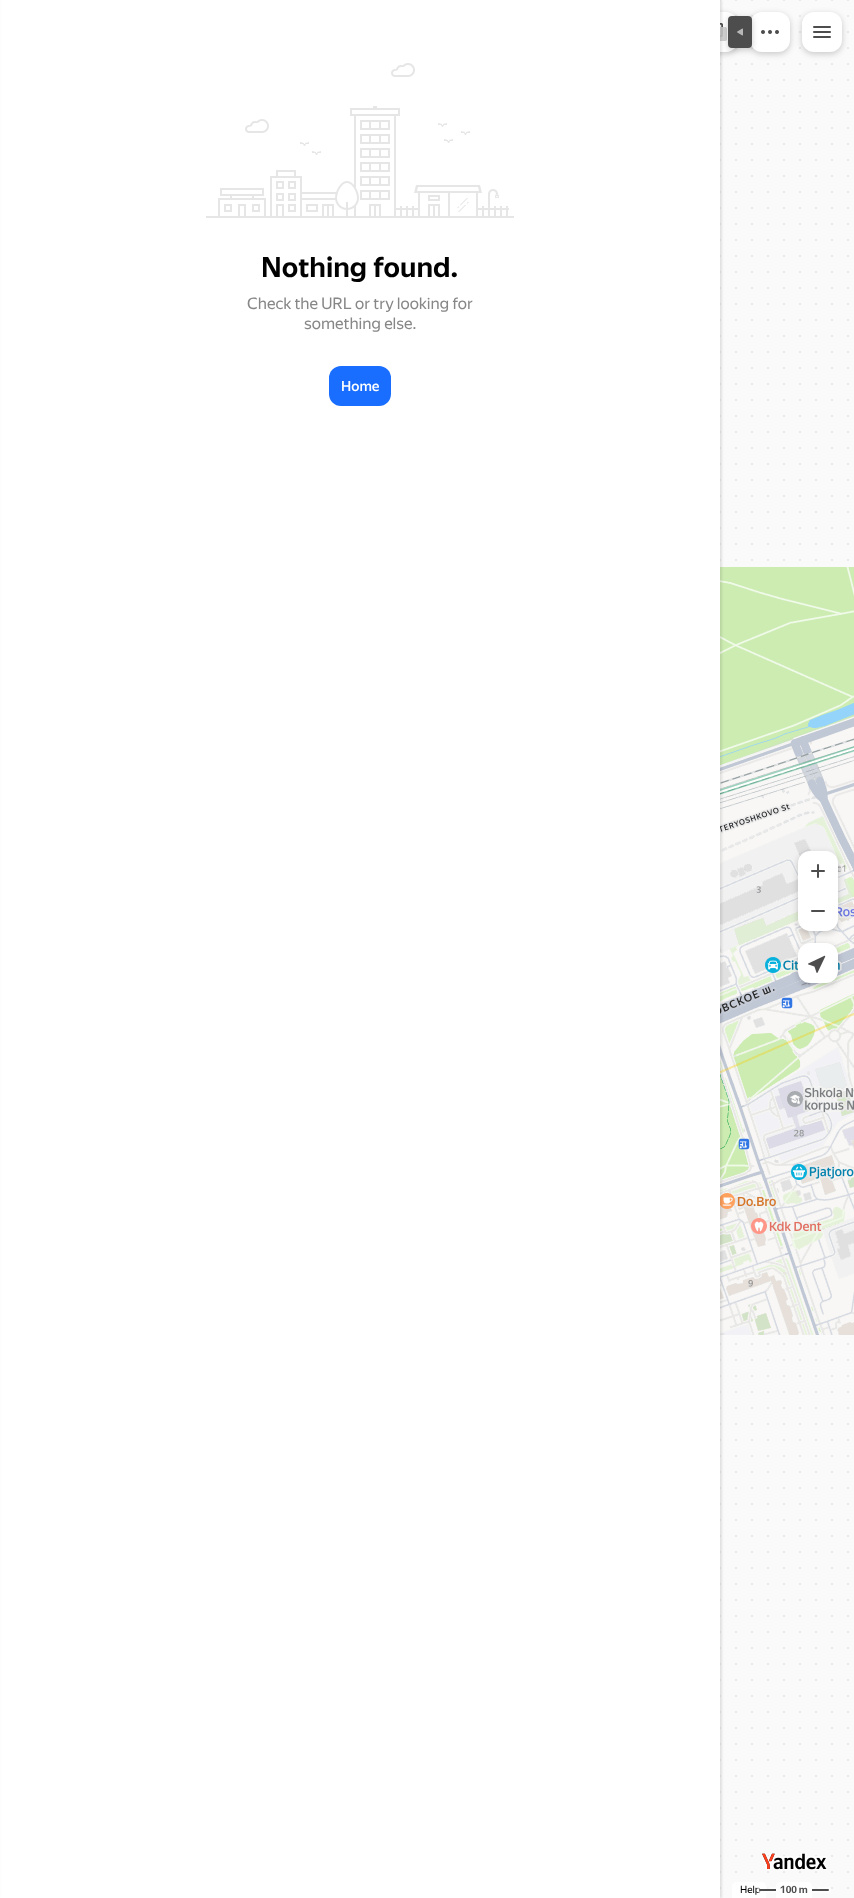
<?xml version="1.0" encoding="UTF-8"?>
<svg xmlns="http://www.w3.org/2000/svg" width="854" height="1898">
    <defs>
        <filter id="blur1" x="-50%" y="-200%" width="200%" height="500%"><feGaussianBlur stdDeviation="3"/></filter>
        <filter id="blur2" x="-50%" y="-200%" width="200%" height="500%"><feGaussianBlur stdDeviation="1"/></filter>
    </defs>
    <rect width="100%" height="100%" fill="#FFFFFF"/>
    <image x="720" y="0" width="134" height="1898" href="img_01.png"/>
    <rect x="658" y="14" width="80" height="40" rx="12" fill="#000000" fill-opacity="0.2" filter="url(#blur1)"/>
    <path d="M 698 12 H 726 C 732.5 12 738 17.5 738 24 V 40 C 738 46.5 732.5 52 726 52 H 698 Z" fill="#FFFFFF"/>
    <image x="720" y="23" width="7" height="18" href="img_04.png"/>
    <rect x="750" y="14" width="40" height="40" rx="12" fill="#000000" fill-opacity="0.2" filter="url(#blur1)"/>
    <rect x="750" y="12" width="40" height="40" rx="12" fill="#FFFFFF"/>
    <image x="761" y="30" width="18" height="4" href="img_05.png"/>
    <rect x="728" y="18" width="24" height="32" rx="4" fill="#000000" fill-opacity="0.2" filter="url(#blur1)"/>
    <rect x="728" y="16" width="24" height="32" rx="4" fill="#4D4D4D"/>
    <image x="737" y="28" width="6" height="8" href="img_02.png"/>
    <image x="720" y="567" width="134" height="256" href="img_11.png"/>
    <image x="720" y="823" width="134" height="256" href="img_12.png"/>
    <image x="720" y="1079" width="134" height="256" href="img_13.png"/>
    <rect x="2" y="0" width="720" height="1898" fill="#000000" fill-opacity="0.1" filter="url(#blur2)"/>
    <rect x="1" y="0" width="719" height="1898" fill="#FFFFFF"/>
    <image x="206" y="63" width="308" height="155" href="img_03.png"/>
    <text x="261" y="277" font-family="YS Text" font-size="28" font-weight="700" fill="#000000">Nothing found.</text>
    <text x="247" y="309" font-family="YS Text" font-size="16" fill="#878787">Check the URL or try looking for</text>
    <text x="304" y="329" font-family="YS Text" font-size="16" fill="#878787">something else.</text>
    <rect x="329" y="366" width="62" height="40" rx="12" fill="#196DFF"/>
    <text x="341" y="391" font-family="YS Text" font-size="14" font-weight="500" fill="#FFFFFF">Home</text>
    <rect x="802" y="14" width="40" height="40" rx="12" fill="#000000" fill-opacity="0.2" filter="url(#blur1)"/>
    <rect x="802" y="12" width="40" height="40" rx="12" fill="#FFFFFF"/>
    <image x="813" y="26" width="18" height="12" href="img_06.png"/>
    <rect x="798" y="853" width="40" height="80" rx="12" fill="#000000" fill-opacity="0.2" filter="url(#blur1)"/>
    <path d="M 810 851 H 826 C 832.5 851 838 856.5 838 863 V 891 H 798 V 863 C 798 856.5 803.5 851 810 851 Z" fill="#FFFFFF"/>
    <image x="811" y="864" width="14" height="14" href="img_07.png"/>
    <path d="M 798 891 H 838 V 919 C 838 925.5 832.5 931 826 931 H 810 C 803.5 931 798 925.5 798 919 Z" fill="#FFFFFF"/>
    <image x="811" y="910" width="14" height="2" href="img_08.png"/>
    <rect x="798" y="945" width="40" height="40" rx="12" fill="#000000" fill-opacity="0.2" filter="url(#blur1)"/>
    <rect x="798" y="943" width="40" height="40" rx="12" fill="#FFFFFF"/>
    <image x="808" y="955" width="18" height="18" href="img_09.png"/>
    <image x="762" y="1853" width="65" height="17" href="img_10.png"/>
    <path d="M 736 1882 H 762 C 764 1882 766 1884 766 1886 V 1898 H 732 V 1886 C 732 1884 734 1882 736 1882 Z" fill="#FFFFFF"/>
    <text x="740" y="1893" font-family="YS Text" font-size="10" fill="#000000">Help</text>
    <rect x="757" y="1887" width="74" height="6" rx="3" fill="#FFFFFF" fill-opacity="0.6"/>
    <rect x="759" y="1889" width="70" height="2" rx="1" fill="#4D4D4D"/>
    <path d="M 780 1882 H 808 C 810 1882 812 1884 812 1886 V 1898 H 776 V 1886 C 776 1884 778 1882 780 1882 Z" fill="#FFFFFF"/>
    <text x="780" y="1893" font-family="YS Text" font-size="10" font-weight="700" fill="#4D4D4D">100 m</text>
</svg>
